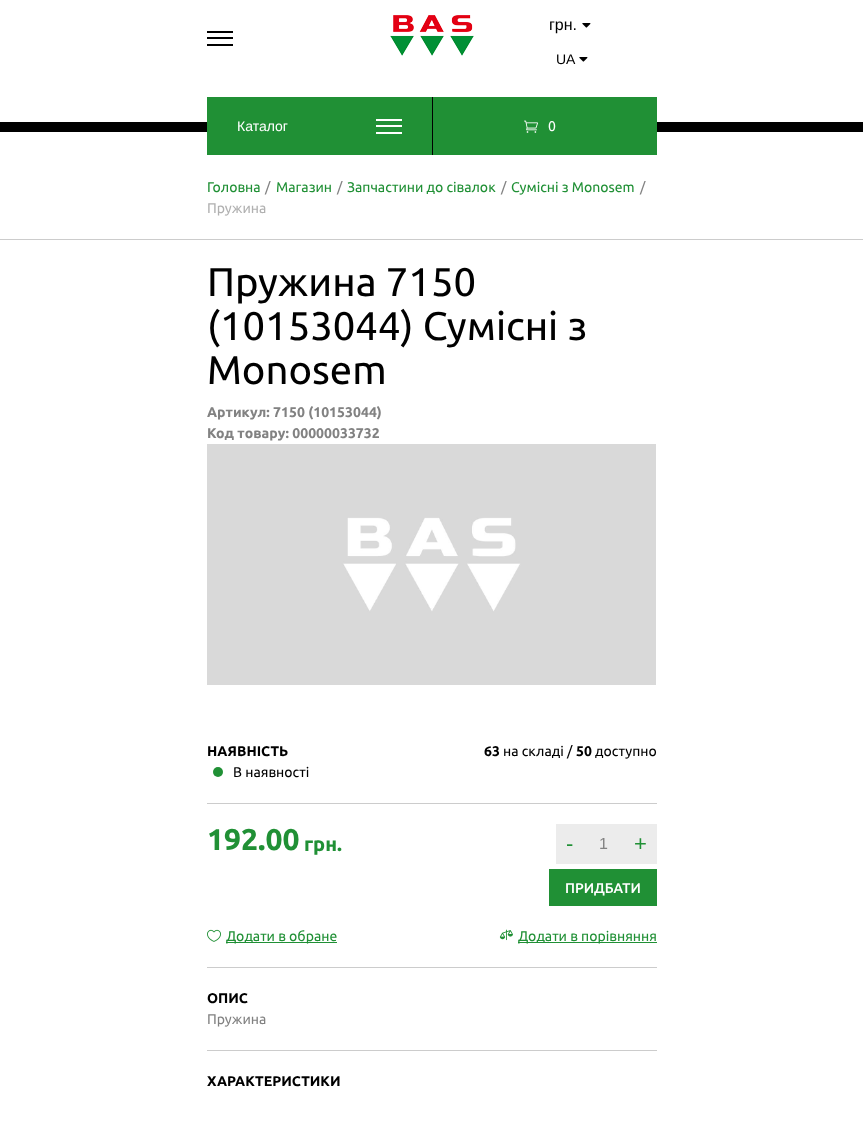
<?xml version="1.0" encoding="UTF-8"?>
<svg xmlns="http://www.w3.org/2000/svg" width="863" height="1121">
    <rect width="100%" height="100%" fill="#FFFFFF"/>
    <rect x="207" y="31" width="26" height="2" fill="#000000"/>
    <rect x="207" y="37" width="26" height="2" fill="#000000"/>
    <rect x="207" y="44" width="26" height="2" fill="#000000"/>
    <image x="390" y="15" width="84" height="41" href="img_01.png"/>
    <text x="549" y="30" font-family="Liberation Sans" font-size="16" fill="#000000">грн.</text>
    <image x="582" y="23" width="9" height="5" href="img_02.png"/>
    <text x="556" y="64" font-family="Liberation Sans" font-size="14" fill="#000000">UA</text>
    <image x="579" y="57" width="9" height="5" href="img_02.png"/>
    <rect x="0" y="122" width="863" height="10" fill="#000000"/>
    <rect x="432" y="97" width="1" height="58" fill="#000000"/>
    <rect x="207" y="97" width="225" height="58" fill="#209035"/>
    <text x="237" y="131" font-family="Liberation Sans" font-size="14" fill="#FFFFFF">Каталог</text>
    <rect x="376" y="119" width="26" height="2" fill="#FFFFFF"/>
    <rect x="376" y="125" width="26" height="2" fill="#FFFFFF"/>
    <rect x="376" y="132" width="26" height="2" fill="#FFFFFF"/>
    <rect x="433" y="97" width="224" height="58" fill="#209035"/>
    <image x="524" y="120" width="14" height="13" href="img_03.png"/>
    <text x="548" y="131" font-family="Ubuntu" font-size="14" fill="#FFFFFF">0</text>
    <rect x="0" y="239" width="863" height="1" fill="#CCCCCC"/>
    <text x="207" y="192" font-family="Ubuntu" font-size="14" fill="#209035">Головна</text>
    <text x="265" y="192" font-family="Ubuntu" font-size="14" fill="#828282">/</text>
    <text x="276" y="192" font-family="Ubuntu" font-size="14" fill="#209035">Магазин</text>
    <text x="337" y="192" font-family="Ubuntu" font-size="14" fill="#828282">/</text>
    <text x="347" y="192" font-family="Ubuntu" font-size="14" fill="#209035">Запчастини до сівалок</text>
    <text x="501" y="192" font-family="Ubuntu" font-size="14" fill="#828282">/</text>
    <text x="511" y="192" font-family="Ubuntu" font-size="14" fill="#209035">Сумісні з Monosem</text>
    <text x="640" y="192" font-family="Ubuntu" font-size="14" fill="#828282">/</text>
    <text x="207" y="213" font-family="Ubuntu" font-size="14" fill="#B1B1B1">Пружина</text>
    <text font-family="Ubuntu" font-size="40" fill="#000000">
        <tspan x="207" y="296">Пружина 7150</tspan>
        <tspan x="207" y="340">(10153044) Сумісні з</tspan>
        <tspan x="207" y="384">Monosem</tspan>
    </text>
    <text font-family="Ubuntu" font-size="14" font-weight="700" fill="#828282">
        <tspan x="207" y="417">Артикул: 7150 (10153044)</tspan>
        <tspan x="207" y="438">Код товару: 00000033732</tspan>
    </text>
    <image x="207" y="444" width="449" height="241" href="img_04.png"/>
    <rect x="207" y="803" width="450" height="1" fill="#CCCCCC"/>
    <text x="207" y="756" font-family="Ubuntu" font-size="14" font-weight="700" fill="#000000">НАЯВНІСТЬ</text>
    <circle cx="218" cy="772" r="5" fill="#209035"/>
    <text x="233" y="777" font-family="Ubuntu" font-size="14" fill="#000000">В наявності</text>
    <text x="484" y="756" font-family="Ubuntu" font-size="14" font-weight="700" fill="#000000">63</text>
    <text x="503" y="756" font-family="Ubuntu" font-size="14" fill="#000000">на складі /</text>
    <text x="576" y="756" font-family="Ubuntu" font-size="14" font-weight="700" fill="#000000">50</text>
    <text x="595" y="756" font-family="Ubuntu" font-size="14" fill="#000000">доступно</text>
    <rect x="207" y="967" width="450" height="1" fill="#CCCCCC"/>
    <text x="207" y="850" font-family="Ubuntu" font-size="30" font-weight="700" fill="#209035">192.00</text>
    <text x="304" y="851" font-family="Ubuntu" font-size="20" font-weight="700" fill="#209035">грн.</text>
    <rect x="556" y="824" width="101" height="40" fill="#ECECEC"/>
    <text x="566" y="851" font-family="Liberation Sans" font-size="22" fill="#209035">-</text>
    <text x="599" y="849" font-family="Liberation Sans" font-size="16" fill="#828282">1</text>
    <text x="634" y="851" font-family="Liberation Sans" font-size="22" fill="#209035">+</text>
    <rect x="549" y="869" width="108" height="37" fill="#209035"/>
    <text x="565" y="893" font-family="Ubuntu" font-size="14" font-weight="500" fill="#FFFFFF">ПРИДБАТИ</text>
    <image x="207" y="929" width="14" height="13" href="img_05.png"/>
    <rect x="226" y="942" width="111" height="1" fill="#209035"/>
    <text x="226" y="941" font-family="Ubuntu" font-size="14" fill="#209035">Додати в обране</text>
    <image x="499" y="929" width="14" height="12" href="img_06.png"/>
    <rect x="518" y="942" width="139" height="1" fill="#209035"/>
    <text x="518" y="941" font-family="Ubuntu" font-size="14" fill="#209035">Додати в порівняння</text>
    <rect x="207" y="1050" width="450" height="1" fill="#CCCCCC"/>
    <text x="207" y="1003" font-family="Ubuntu" font-size="14" font-weight="700" fill="#000000">ОПИС</text>
    <text x="207" y="1024" font-family="Ubuntu" font-size="14" fill="#828282">Пружина</text>
    <text x="207" y="1086" font-family="Ubuntu" font-size="14" font-weight="700" fill="#000000">ХАРАКТЕРИСТИКИ</text>
</svg>
